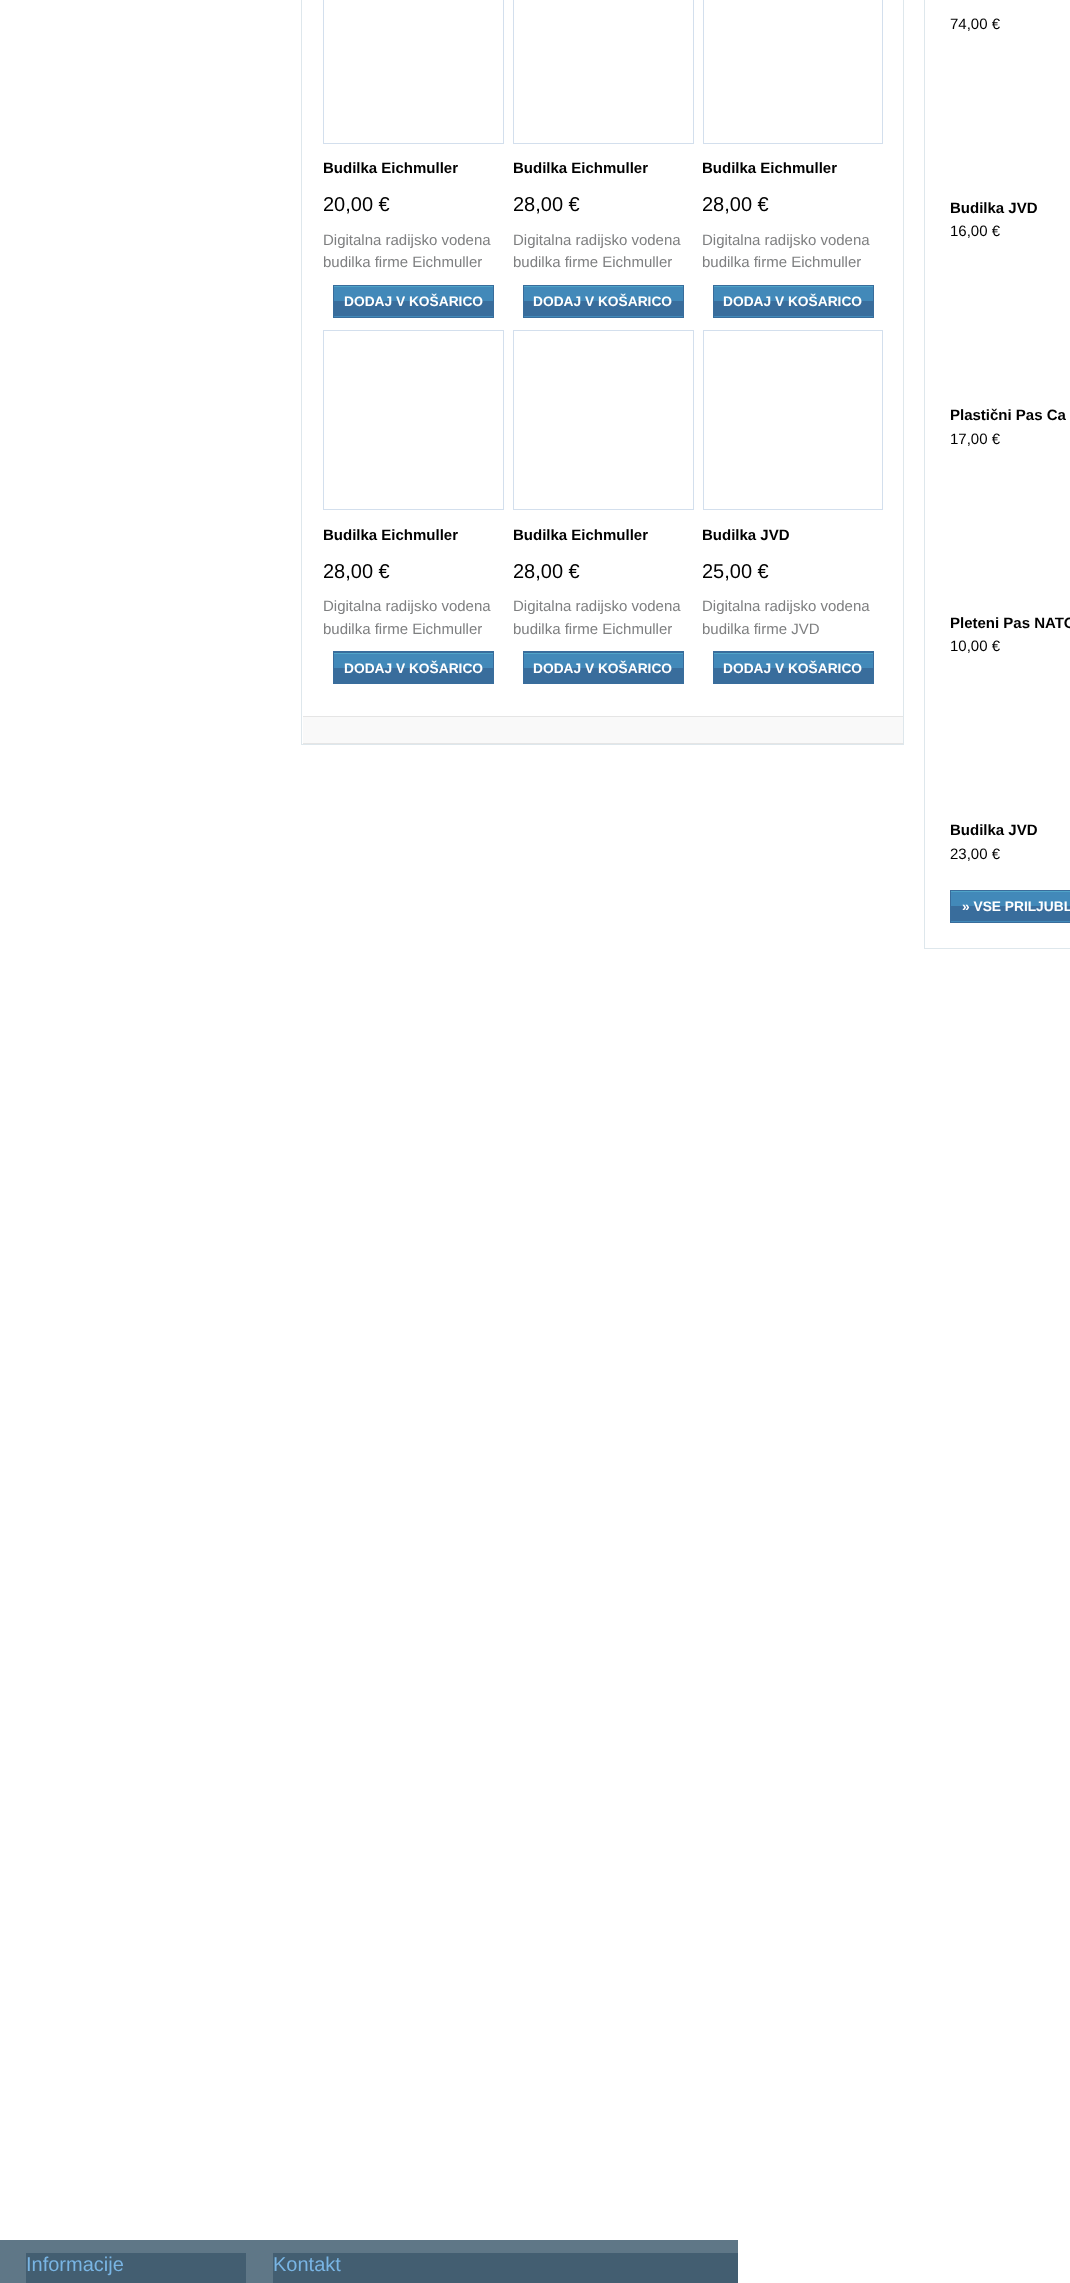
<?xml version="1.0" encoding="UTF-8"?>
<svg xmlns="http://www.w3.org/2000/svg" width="1070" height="2283">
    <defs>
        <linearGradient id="g1" gradientUnits="userSpaceOnUse" x1="123" y1="2240" x2="123" y2="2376"><stop offset="0.44" stop-color="#5F7787"/><stop offset="0.92" stop-color="#455F72"/></linearGradient>
        <linearGradient id="g2" gradientUnits="userSpaceOnUse" x1="492" y1="2240" x2="492" y2="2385"><stop offset="0.44" stop-color="#5F7787"/><stop offset="0.92" stop-color="#455F72"/></linearGradient>
    </defs>
    <rect width="100%" height="100%" fill="#FFFFFF"/>
    <rect x="301.5" y="-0.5" width="602" height="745" fill="none" stroke="#DEE7EC"/>
    <rect x="323.5" y="-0.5" width="180" height="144" fill="none" stroke="#D3DFED"/>
    <text x="323" y="173" font-family="Liberation Sans" font-size="15" font-weight="700" fill="#000000">Budilka Eichmuller</text>
    <text x="323" y="211" font-family="Liberation Sans" font-size="20" fill="#000000">20,00 €</text>
    <text font-family="Liberation Sans" font-size="15" fill="#7E7F80">
        <tspan x="323" y="245">Digitalna radijsko vodena</tspan>
        <tspan x="323" y="267">budilka firme Eichmuller</tspan>
    </text>
    <rect x="334" y="287" width="159" height="14" fill="#4289B9"/>
    <rect x="334" y="301" width="159" height="15" fill="#396D9C"/>
    <rect x="333" y="316" width="161" height="1" fill="#4289B9"/>
    <rect x="334" y="286" width="159" height="1" fill="#50A4C8"/>
    <rect x="333.5" y="285.5" width="160" height="32" fill="none" stroke="#396D9C"/>
    <text x="344" y="306" font-family="Liberation Sans" font-size="13.75" font-weight="700" fill="#FFFFFF">DODAJ V KOŠARICO</text>
    <rect x="513.5" y="-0.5" width="180" height="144" fill="none" stroke="#D3DFED"/>
    <text x="513" y="173" font-family="Liberation Sans" font-size="15" font-weight="700" fill="#000000">Budilka Eichmuller</text>
    <text x="513" y="211" font-family="Liberation Sans" font-size="20" fill="#000000">28,00 €</text>
    <text font-family="Liberation Sans" font-size="15" fill="#7E7F80">
        <tspan x="513" y="245">Digitalna radijsko vodena</tspan>
        <tspan x="513" y="267">budilka firme Eichmuller</tspan>
    </text>
    <rect x="524" y="287" width="159" height="14" fill="#4289B9"/>
    <rect x="524" y="301" width="159" height="15" fill="#396D9C"/>
    <rect x="523" y="316" width="161" height="1" fill="#4289B9"/>
    <rect x="524" y="286" width="159" height="1" fill="#50A4C8"/>
    <rect x="523.5" y="285.5" width="160" height="32" fill="none" stroke="#396D9C"/>
    <text x="533" y="306" font-family="Liberation Sans" font-size="13.75" font-weight="700" fill="#FFFFFF">DODAJ V KOŠARICO</text>
    <rect x="703.5" y="-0.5" width="179" height="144" fill="none" stroke="#D3DFED"/>
    <text x="702" y="173" font-family="Liberation Sans" font-size="15" font-weight="700" fill="#000000">Budilka Eichmuller</text>
    <text x="702" y="211" font-family="Liberation Sans" font-size="20" fill="#000000">28,00 €</text>
    <text font-family="Liberation Sans" font-size="15" fill="#7E7F80">
        <tspan x="702" y="245">Digitalna radijsko vodena</tspan>
        <tspan x="702" y="267">budilka firme Eichmuller</tspan>
    </text>
    <rect x="714" y="287" width="159" height="14" fill="#4289B9"/>
    <rect x="714" y="301" width="159" height="15" fill="#396D9C"/>
    <rect x="713" y="316" width="161" height="1" fill="#4289B9"/>
    <rect x="714" y="286" width="159" height="1" fill="#50A4C8"/>
    <rect x="713.5" y="285.5" width="160" height="32" fill="none" stroke="#396D9C"/>
    <text x="723" y="306" font-family="Liberation Sans" font-size="13.75" font-weight="700" fill="#FFFFFF">DODAJ V KOŠARICO</text>
    <rect x="323.5" y="330.5" width="180" height="179" fill="none" stroke="#D3DFED"/>
    <text x="323" y="540" font-family="Liberation Sans" font-size="15" font-weight="700" fill="#000000">Budilka Eichmuller</text>
    <text x="323" y="578" font-family="Liberation Sans" font-size="20" fill="#000000">28,00 €</text>
    <text font-family="Liberation Sans" font-size="15" fill="#7E7F80">
        <tspan x="323" y="611">Digitalna radijsko vodena</tspan>
        <tspan x="323" y="634">budilka firme Eichmuller</tspan>
    </text>
    <rect x="333" y="652" width="161" height="1" fill="#396D9C"/>
    <rect x="334" y="654" width="159" height="14" fill="#4289B9"/>
    <rect x="334" y="668" width="159" height="15" fill="#396D9C"/>
    <rect x="334" y="653" width="159" height="1" fill="#50A4C8"/>
    <rect x="333.5" y="651.5" width="160" height="32" fill="none" stroke="#396D9C"/>
    <text x="344" y="673" font-family="Liberation Sans" font-size="13.75" font-weight="700" fill="#FFFFFF">DODAJ V KOŠARICO</text>
    <rect x="513.5" y="330.5" width="180" height="179" fill="none" stroke="#D3DFED"/>
    <text x="513" y="540" font-family="Liberation Sans" font-size="15" font-weight="700" fill="#000000">Budilka Eichmuller</text>
    <text x="513" y="578" font-family="Liberation Sans" font-size="20" fill="#000000">28,00 €</text>
    <text font-family="Liberation Sans" font-size="15" fill="#7E7F80">
        <tspan x="513" y="611">Digitalna radijsko vodena</tspan>
        <tspan x="513" y="634">budilka firme Eichmuller</tspan>
    </text>
    <rect x="523" y="652" width="161" height="1" fill="#396D9C"/>
    <rect x="524" y="654" width="159" height="14" fill="#4289B9"/>
    <rect x="524" y="668" width="159" height="15" fill="#396D9C"/>
    <rect x="524" y="653" width="159" height="1" fill="#50A4C8"/>
    <rect x="523.5" y="651.5" width="160" height="32" fill="none" stroke="#396D9C"/>
    <text x="533" y="673" font-family="Liberation Sans" font-size="13.75" font-weight="700" fill="#FFFFFF">DODAJ V KOŠARICO</text>
    <rect x="703.5" y="330.5" width="179" height="179" fill="none" stroke="#D3DFED"/>
    <text x="702" y="540" font-family="Liberation Sans" font-size="15" font-weight="700" fill="#000000">Budilka JVD</text>
    <text x="702" y="578" font-family="Liberation Sans" font-size="20" fill="#000000">25,00 €</text>
    <text font-family="Liberation Sans" font-size="15" fill="#7E7F80">
        <tspan x="702" y="611">Digitalna radijsko vodena</tspan>
        <tspan x="702" y="634">budilka firme JVD</tspan>
    </text>
    <rect x="713" y="652" width="161" height="1" fill="#396D9C"/>
    <rect x="714" y="654" width="159" height="14" fill="#4289B9"/>
    <rect x="714" y="668" width="159" height="15" fill="#396D9C"/>
    <rect x="714" y="653" width="159" height="1" fill="#50A4C8"/>
    <rect x="713.5" y="651.5" width="160" height="32" fill="none" stroke="#396D9C"/>
    <text x="723" y="673" font-family="Liberation Sans" font-size="13.75" font-weight="700" fill="#FFFFFF">DODAJ V KOŠARICO</text>
    <rect x="303" y="717" width="600" height="26" fill="#F9F9F9"/>
    <rect x="303" y="716" width="600" height="1" fill="#E5E5E5"/>
    <rect x="303" y="743" width="600" height="1" fill="#E5E5E5"/>
    <rect x="924" y="948" width="146" height="1" fill="#DEE7EC"/>
    <rect x="924" y="0" width="1" height="949" fill="#DEE7EC"/>
    <text x="950" y="29" font-family="Liberation Sans" font-size="15" fill="#000000">74,00 €</text>
    <text x="950" y="213" font-family="Liberation Sans" font-size="15" font-weight="700" fill="#000000">Budilka JVD</text>
    <text x="950" y="236" font-family="Liberation Sans" font-size="15" fill="#000000">16,00 €</text>
    <text x="950" y="420" font-family="Liberation Sans" font-size="15" font-weight="700" fill="#000000">Plastični Pas Ca</text>
    <text x="950" y="444" font-family="Liberation Sans" font-size="15" fill="#000000">17,00 €</text>
    <text x="950" y="628" font-family="Liberation Sans" font-size="15" font-weight="700" fill="#000000">Pleteni Pas NATO</text>
    <text x="950" y="651" font-family="Liberation Sans" font-size="15" fill="#000000">10,00 €</text>
    <text x="950" y="835" font-family="Liberation Sans" font-size="15" font-weight="700" fill="#000000">Budilka JVD</text>
    <text x="950" y="859" font-family="Liberation Sans" font-size="15" fill="#000000">23,00 €</text>
    <rect x="951" y="892" width="119" height="14" fill="#4289B9"/>
    <rect x="951" y="906" width="119" height="15" fill="#396D9C"/>
    <rect x="950" y="921" width="120" height="1" fill="#4289B9"/>
    <rect x="951" y="891" width="119" height="1" fill="#50A4C8"/>
    <rect x="950.5" y="890.5" width="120" height="32" fill="none" stroke="#396D9C"/>
    <text x="962" y="911" font-family="Liberation Sans" font-size="13.75" font-weight="700" fill="#FFFFFF">» VSE PRILJUBL</text>
    <rect x="0" y="2240" width="246" height="43" fill="url(#g1)"/>
    <rect x="26" y="2253" width="220" height="30" fill="#435E71"/>
    <text x="26" y="2271" font-family="Liberation Sans" font-size="20" fill="#79B5E4">Informacije</text>
    <rect x="246" y="2240" width="492" height="43" fill="url(#g2)"/>
    <rect x="273" y="2253" width="465" height="30" fill="#435E71"/>
    <text x="273" y="2271" font-family="Liberation Sans" font-size="20" fill="#79B5E4">Kontakt</text>
</svg>
